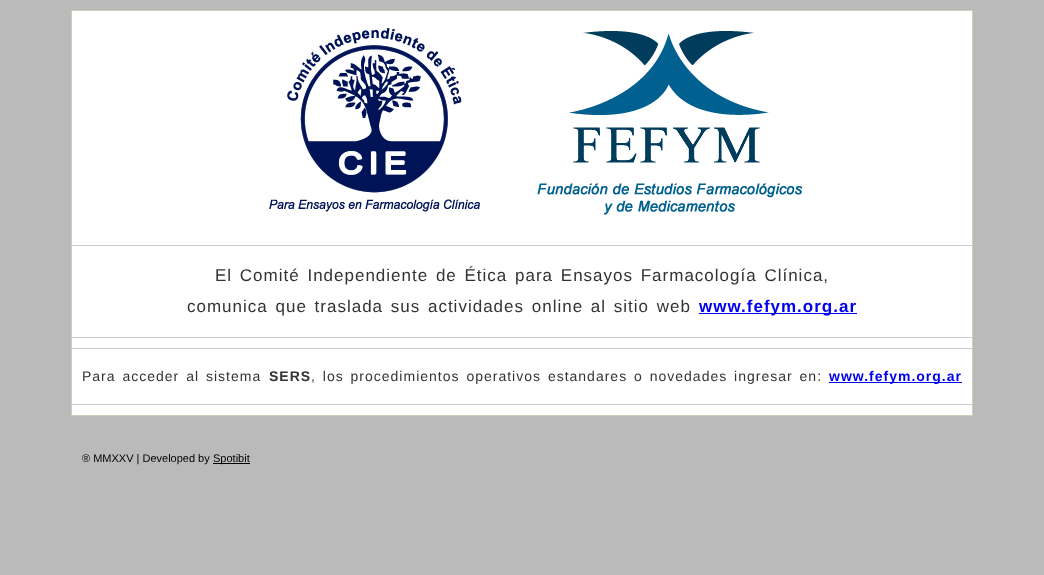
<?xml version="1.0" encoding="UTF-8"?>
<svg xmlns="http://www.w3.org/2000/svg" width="1044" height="575">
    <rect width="100%" height="100%" fill="#BABABA"/>
    <rect x="71.5" y="10.5" width="901" height="405" fill="#FFFFFF" stroke="#D1CCB8"/>
    <image x="269" y="28" width="211" height="184" href="img_01.png"/>
    <image x="537" y="31" width="266" height="184" href="img_02.png"/>
    <rect x="72" y="245" width="900" height="1" fill="#CCCCCC"/>
    <rect x="72" y="337" width="900" height="1" fill="#CCCCCC"/>
    <text x="215" y="281" word-spacing="2" font-family="Liberation Sans" font-size="17" letter-spacing="1" fill="#333333">El Comité Independiente de Ética para Ensayos Farmacología Clínica,</text>
    <text x="187" y="312" word-spacing="2" font-family="Liberation Sans" font-size="17" letter-spacing="1" fill="#333333">comunica que traslada sus actividades online al sitio web</text>
    <rect x="699" y="313" width="158" height="1" fill="#0000EE"/>
    <text x="699" y="312" font-family="Liberation Sans" font-size="17" font-weight="700" letter-spacing="1" fill="#0000EE">www.fefym.org.ar</text>
    <rect x="72" y="348" width="900" height="1" fill="#CCCCCC"/>
    <rect x="72" y="404" width="900" height="1" fill="#CCCCCC"/>
    <text x="82" y="381" word-spacing="2" font-family="Liberation Sans" font-size="14" letter-spacing="1" fill="#333333">Para acceder al sistema</text>
    <text x="269" y="381" font-family="Liberation Sans" font-size="14" font-weight="700" letter-spacing="1" fill="#333333">SERS</text>
    <text x="311" y="381" word-spacing="2" font-family="Liberation Sans" font-size="14" letter-spacing="1" fill="#333333">, los procedimientos operativos estandares o novedades ingresar en:</text>
    <rect x="829" y="382" width="133" height="1" fill="#0000EE"/>
    <text x="829" y="381" font-family="Liberation Sans" font-size="14" font-weight="700" letter-spacing="1" fill="#0000EE">www.fefym.org.ar</text>
    <text x="82" y="462" font-family="Liberation Sans" font-size="11" fill="#000000">® MMXXV | Developed by</text>
    <rect x="213" y="463" width="37" height="1" fill="#000000"/>
    <text x="213" y="462" font-family="Liberation Sans" font-size="11" fill="#000000">Spotibit</text>
</svg>
